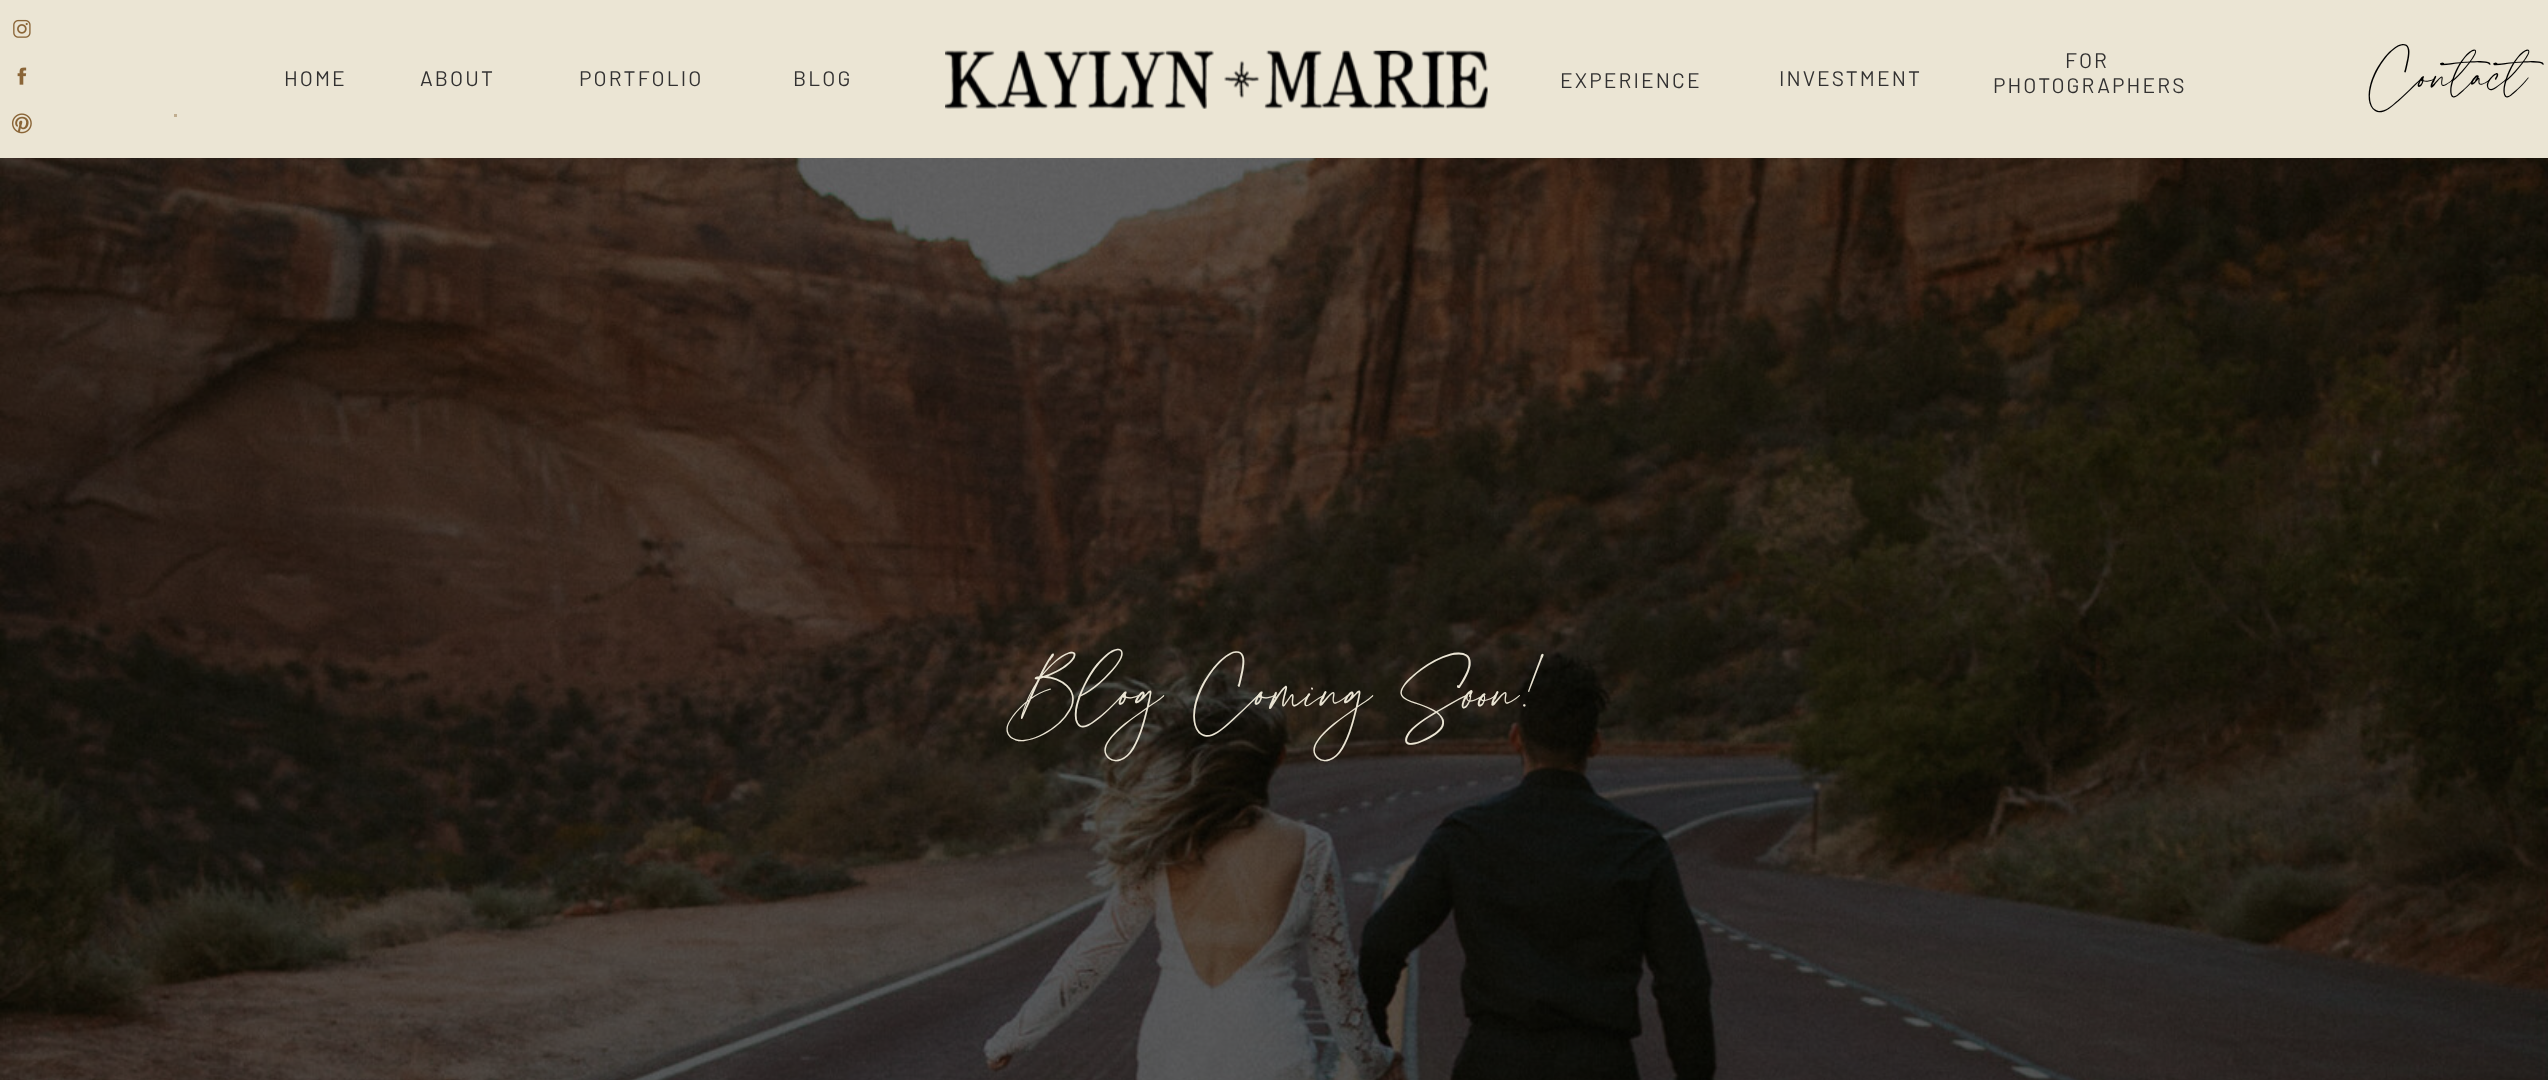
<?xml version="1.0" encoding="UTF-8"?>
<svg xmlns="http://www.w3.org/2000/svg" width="2548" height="1080">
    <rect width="100%" height="100%" fill="#000000"/>
    <rect x="0" y="0" width="2548" height="158" fill="#EBE5D4"/>
    <image x="13" y="19" width="18" height="19" href="img_01.png"/>
    <image x="17" y="67" width="10" height="18" href="img_02.png"/>
    <text x="284" y="86" font-family="Barlow" font-size="21" letter-spacing="2.1" fill="#323131">HOME</text>
    <text x="420" y="86" font-family="Barlow" font-size="21" letter-spacing="2.1" fill="#323131">ABOUT</text>
    <text x="579" y="86" font-family="Barlow" font-size="21" letter-spacing="2.1" fill="#323131">PORTFOLIO</text>
    <text x="793" y="86" font-family="Barlow" font-size="21" letter-spacing="2.1" fill="#323131">BLOG</text>
    <image x="945" y="50" width="543" height="59" href="img_03.png"/>
    <text x="1560" y="88" font-family="Barlow" font-size="21" letter-spacing="2.1" fill="#323131">EXPERIENCE</text>
    <text x="1779" y="86" font-family="Barlow" font-size="21" letter-spacing="2.1" fill="#323131">INVESTMENT</text>
    <text x="2065" y="68" font-family="Barlow" font-size="21" letter-spacing="2.1" fill="#323131">FOR</text>
    <text x="1993" y="93" font-family="Barlow" font-size="21" letter-spacing="2.1" fill="#323131">PHOTOGRAPHERS</text>
    <text x="2364" y="103" font-family="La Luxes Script" font-size="77" fill="#000000">Contact</text>
    <image x="11" y="113" width="21" height="21" href="img_04.png"/>
    <rect x="174" y="114" width="3" height="3" fill="#C0AD8F"/>
    <image x="0" y="158" width="2548" height="922" href="img_05.png"/>
    <text x="1010" y="725" font-family="La Luxes Script" font-size="96.25" fill="#EBE5D4">Blog Coming Soon!</text>
</svg>
